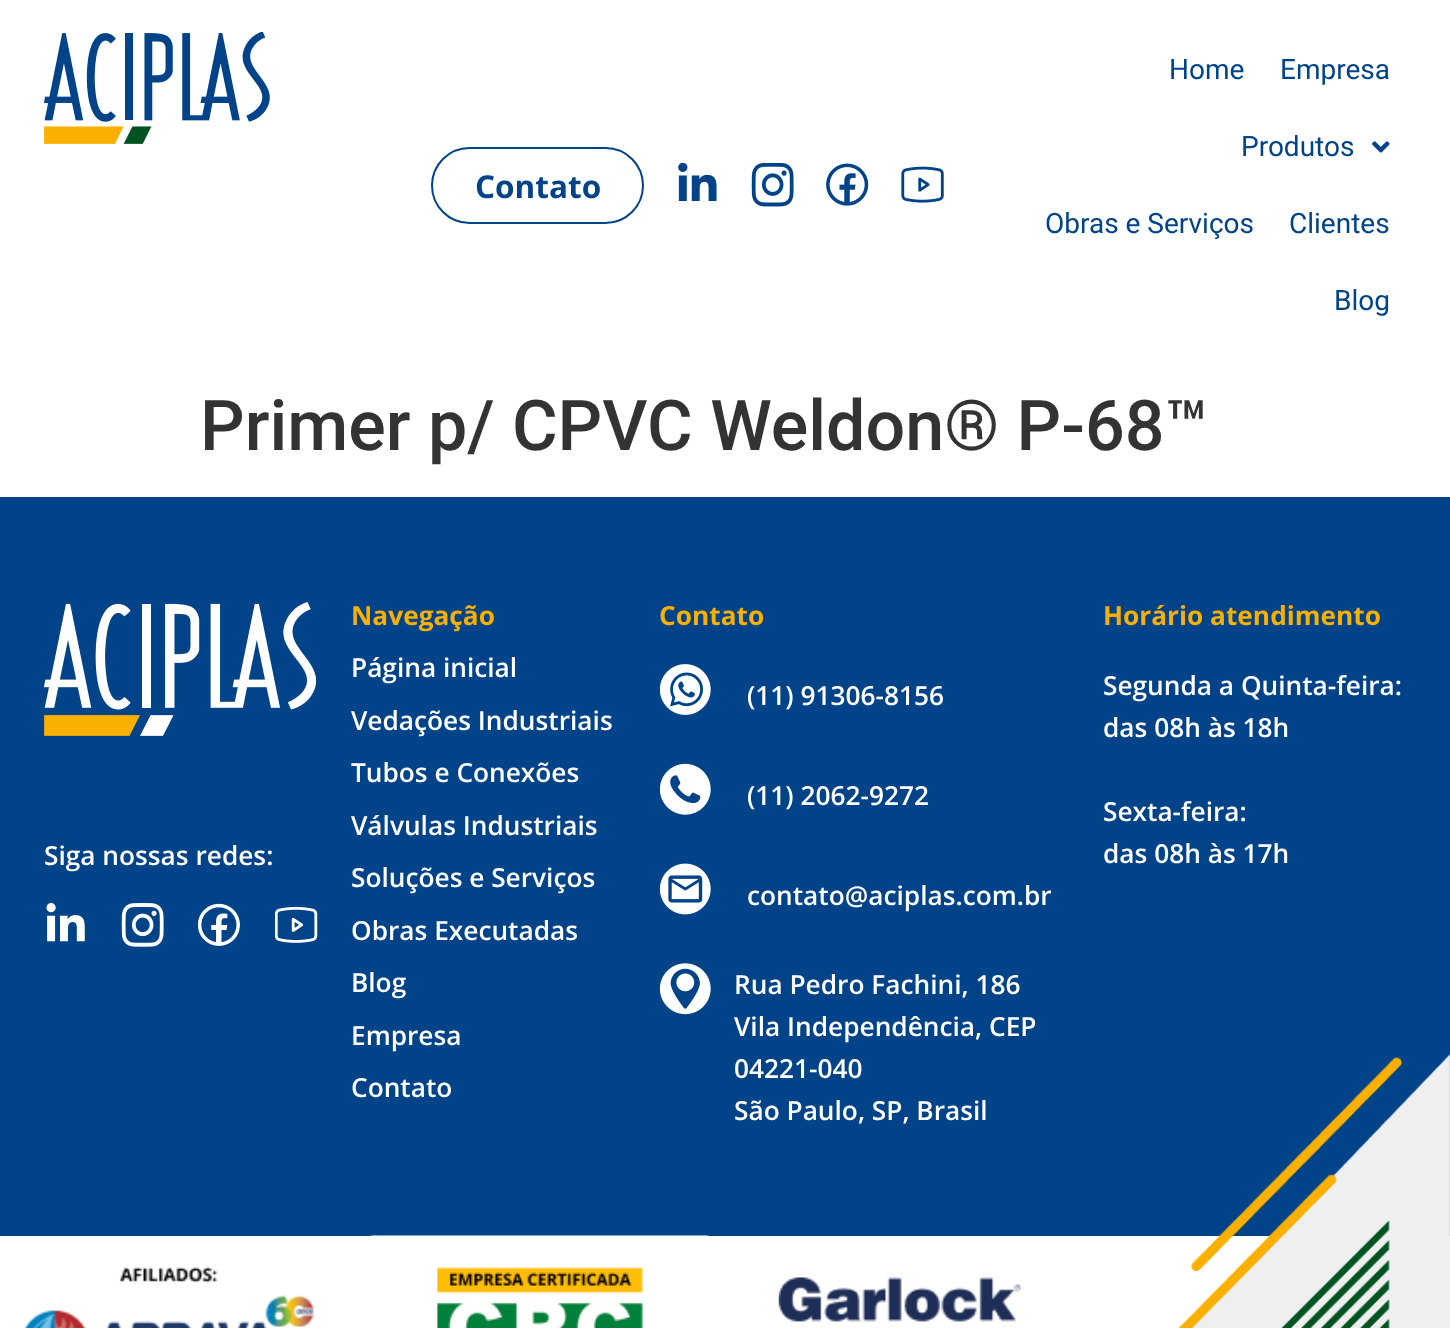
<?xml version="1.0" encoding="UTF-8"?>
<svg xmlns="http://www.w3.org/2000/svg" width="1450" height="1328">
    <rect width="100%" height="100%" fill="#FFFFFF"/>
    <image x="44" y="32" width="226" height="112" href="img_01.png"/>
    <rect x="432" y="148" width="211" height="75" rx="37.5" fill="none" stroke="#004388" stroke-width="2"/>
    <text x="475" y="198" font-family="Open Sans" font-size="31.5" font-weight="700" fill="#004388">Contato</text>
    <image x="678" y="163" width="39" height="38" href="img_02.png"/>
    <image x="751" y="163" width="43" height="44" href="img_03.png"/>
    <image x="826" y="163" width="43" height="43" href="img_04.png"/>
    <image x="901" y="166" width="43" height="37" href="img_05.png"/>
    <text x="1169" y="79" font-family="Roboto" font-size="28" fill="#004388">Home</text>
    <text x="1280" y="79" font-family="Roboto" font-size="28" fill="#004388">Empresa</text>
    <text x="1241" y="156" font-family="Roboto" font-size="28" fill="#004388">Produtos</text>
    <image x="1372" y="141" width="18" height="12" href="img_06.png"/>
    <text x="1045" y="233" font-family="Roboto" font-size="28" fill="#004388">Obras e Serviços</text>
    <text x="1289" y="233" font-family="Roboto" font-size="28" fill="#004388">Clientes</text>
    <text x="1334" y="310" font-family="Roboto" font-size="28" fill="#004388">Blog</text>
    <text x="200" y="450" font-family="Roboto" font-size="70" font-weight="500" fill="#333333">Primer p/ CPVC Weldon® P-68™</text>
    <rect x="0" y="497" width="1450" height="739" fill="#004388"/>
    <image x="44" y="602" width="272" height="134" href="img_07.png"/>
    <text x="44" y="865" font-family="Open Sans" font-size="26.25" font-weight="600" fill="#FFFFFF">Siga nossas redes:</text>
    <image x="46" y="903" width="39" height="39" href="img_08.png"/>
    <image x="121" y="903" width="43" height="44" href="img_09.png"/>
    <image x="198" y="903" width="42" height="43" href="img_10.png"/>
    <image x="275" y="906" width="43" height="37" href="img_11.png"/>
    <text x="351" y="625" font-family="Open Sans" font-size="26.25" font-weight="700" fill="#F9B000">Navegação</text>
    <text x="351" y="677" font-family="Open Sans" font-size="26.25" font-weight="600" fill="#FFFFFF">Página inicial</text>
    <text font-family="Open Sans" font-size="26.25" font-weight="600" fill="#FFFFFF">
        <tspan x="351" y="730">Vedações Industriais</tspan>
        <tspan x="351" y="782">Tubos e Conexões</tspan>
    </text>
    <text font-family="Open Sans" font-size="26.25" font-weight="600" fill="#FFFFFF">
        <tspan x="351" y="835">Válvulas Industriais</tspan>
        <tspan x="351" y="887">Soluções e Serviços</tspan>
    </text>
    <text font-family="Open Sans" font-size="26.25" font-weight="600" fill="#FFFFFF">
        <tspan x="351" y="940">Obras Executadas</tspan>
        <tspan x="351" y="992">Blog</tspan>
    </text>
    <text font-family="Open Sans" font-size="26.25" font-weight="600" fill="#FFFFFF">
        <tspan x="351" y="1045">Empresa</tspan>
        <tspan x="351" y="1097">Contato</tspan>
    </text>
    <text x="659" y="625" font-family="Open Sans" font-size="26.25" font-weight="700" fill="#F9B000">Contato</text>
    <image x="660" y="664" width="51" height="51" href="img_12.png"/>
    <text x="747" y="705" font-family="Open Sans" font-size="26.25" font-weight="600" fill="#FFFFFF">(11) 91306-8156</text>
    <image x="660" y="763" width="51" height="52" href="img_13.png"/>
    <text x="747" y="805" font-family="Open Sans" font-size="26.25" font-weight="600" fill="#FFFFFF">(11) 2062-9272</text>
    <image x="660" y="863" width="51" height="52" href="img_14.png"/>
    <text x="747" y="905" font-family="Open Sans" font-size="26.25" font-weight="600" fill="#FFFFFF">contato@aciplas.com.br</text>
    <image x="660" y="963" width="51" height="52" href="img_15.png"/>
    <text font-family="Open Sans" font-size="26.25" font-weight="600" fill="#FFFFFF">
        <tspan x="734" y="994">Rua Pedro Fachini, 186</tspan>
        <tspan x="734" y="1036">Vila Independência, CEP</tspan>
        <tspan x="734" y="1078">04221-040</tspan>
        <tspan x="734" y="1120">São Paulo, SP, Brasil</tspan>
    </text>
    <text x="1103" y="625" font-family="Open Sans" font-size="26.25" font-weight="700" fill="#F9B000">Horário atendimento</text>
    <text font-family="Open Sans" font-size="26.25" font-weight="600" fill="#FFFFFF">
        <tspan x="1103" y="695">Segunda a Quinta-feira:</tspan>
        <tspan x="1103" y="737">das 08h às 18h</tspan>
    </text>
    <text font-family="Open Sans" font-size="26.25" font-weight="600" fill="#FFFFFF">
        <tspan x="1103" y="821">Sexta-feira:</tspan>
        <tspan x="1103" y="863">das 08h às 17h</tspan>
    </text>
    <image x="24" y="1266" width="290" height="62" href="img_16.png"/>
    <image x="371" y="1235" width="338" height="93" href="img_17.png"/>
    <image x="778" y="1277" width="244" height="45" href="img_18.png"/>
    <image x="1178" y="1053" width="272" height="275" href="img_19.png"/>
</svg>
